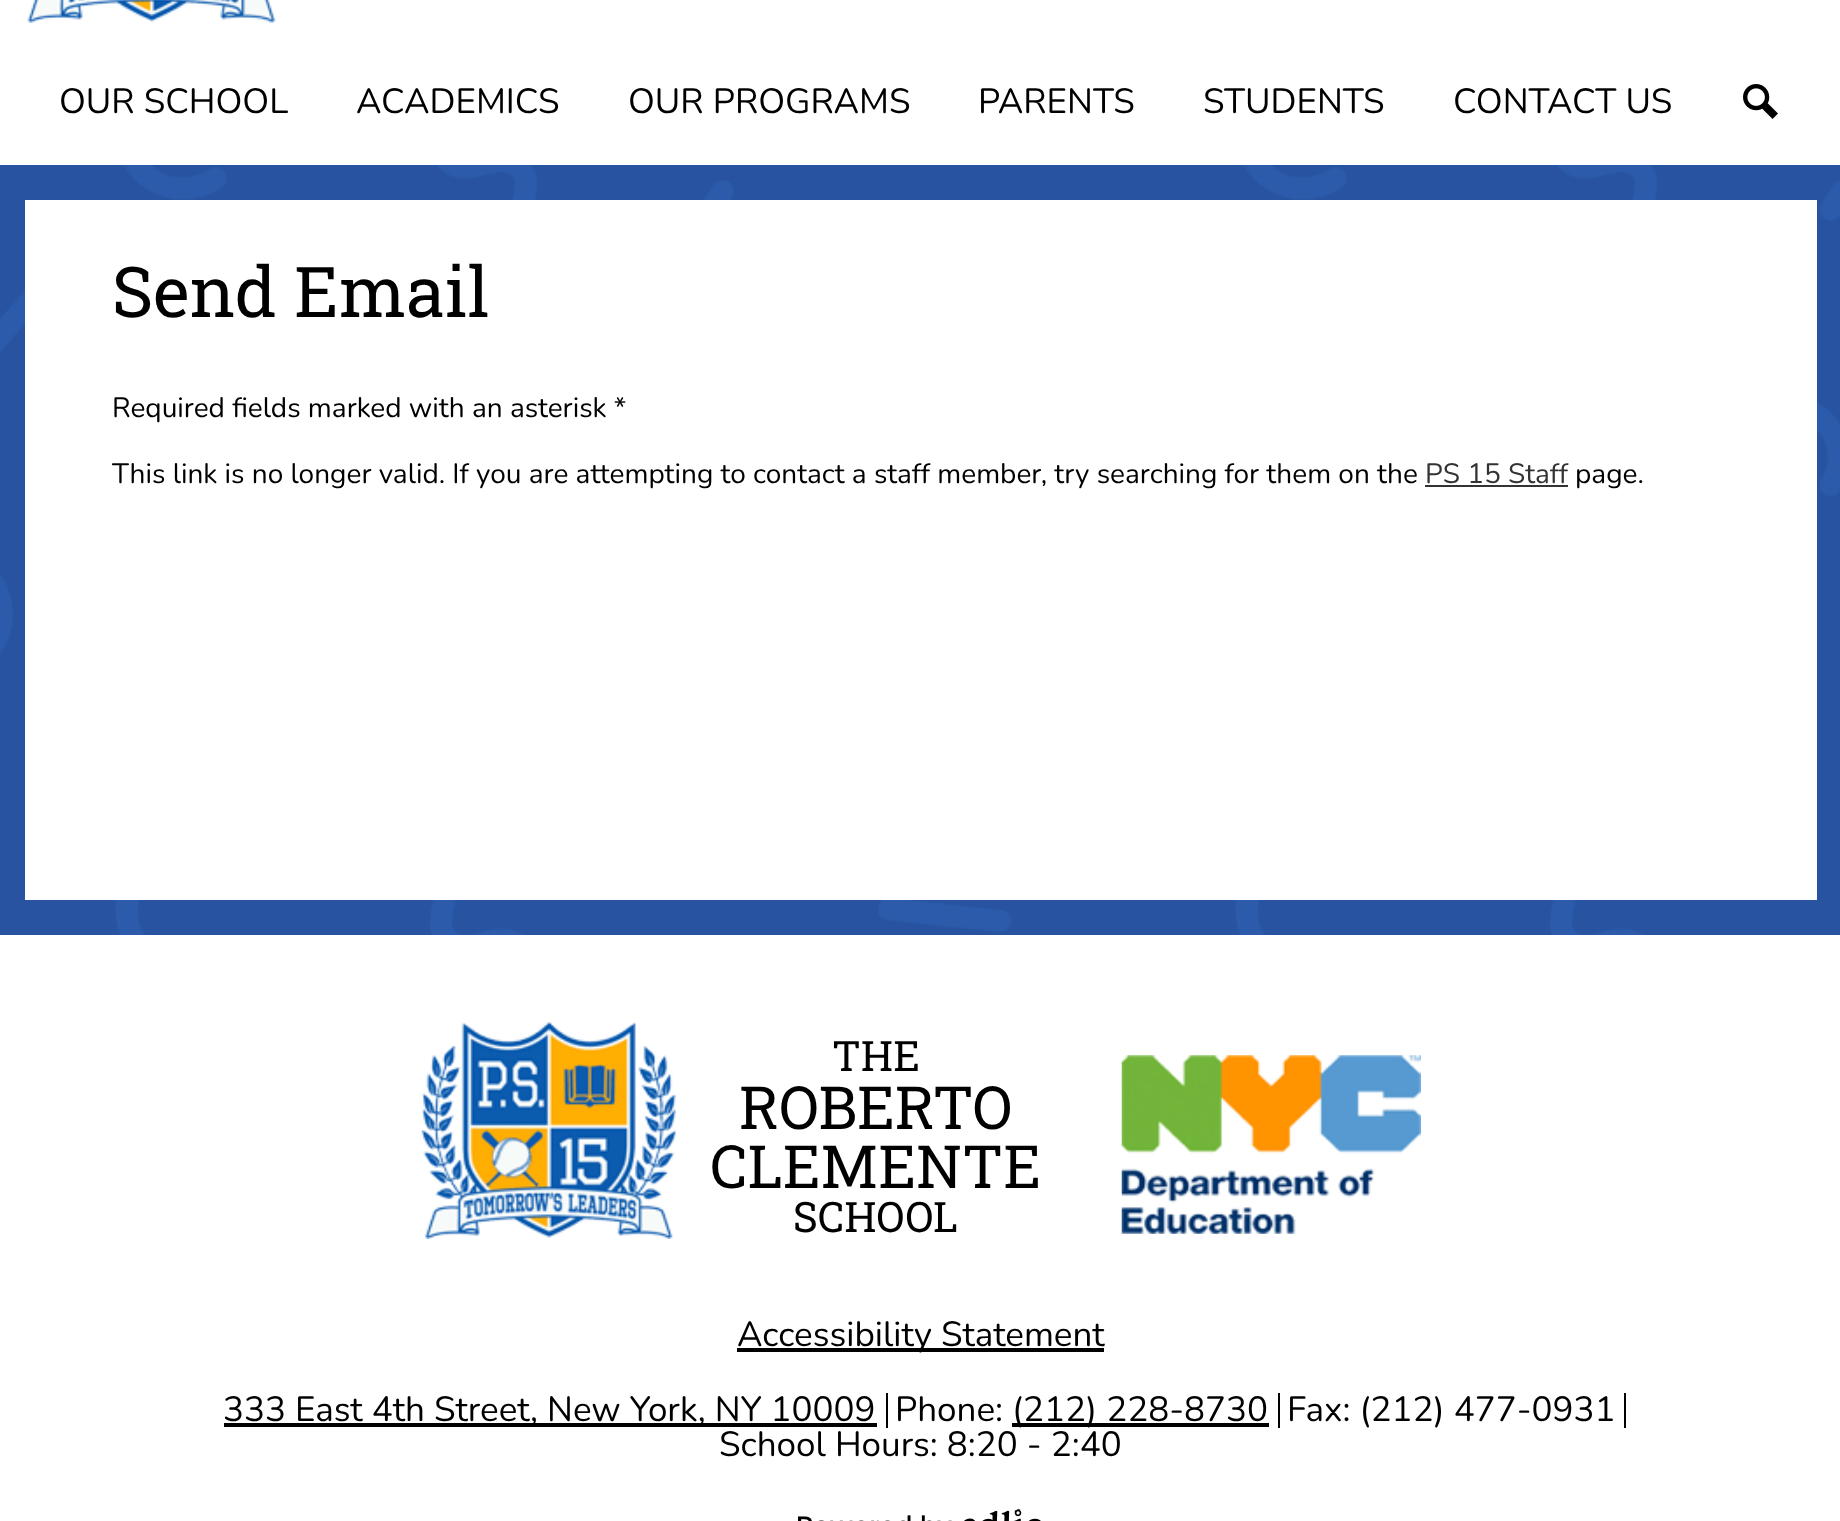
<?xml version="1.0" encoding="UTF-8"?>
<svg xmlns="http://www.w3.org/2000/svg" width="1840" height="1521">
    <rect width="100%" height="100%" fill="#FFFFFF"/>
    <image x="0" y="165" width="1840" height="770" href="img_01.png"/>
    <image x="27" y="0" width="249" height="23" href="img_02.png"/>
    <text x="59" y="113" font-family="Nunito" font-size="35" fill="#000000">OUR SCHOOL</text>
    <text x="356" y="113" font-family="Nunito" font-size="35" fill="#000000">ACADEMICS</text>
    <text x="628" y="113" font-family="Nunito" font-size="35" fill="#000000">OUR PROGRAMS</text>
    <text x="978" y="113" font-family="Nunito" font-size="35" fill="#000000">PARENTS</text>
    <text x="1203" y="113" font-family="Nunito" font-size="35" fill="#000000">STUDENTS</text>
    <text x="1453" y="113" font-family="Nunito" font-size="35" fill="#000000">CONTACT US</text>
    <image x="1743" y="84" width="35" height="35" href="img_03.png"/>
    <rect x="25" y="200" width="1792" height="700" fill="#FFFFFF"/>
    <text x="112" y="317" font-family="Roboto Slab" font-size="70" fill="#000000">Send Email</text>
    <text x="112" y="417" font-family="Nunito" font-size="28" fill="#000000">Required fields marked with an asterisk *</text>
    <text x="112" y="483" font-family="Nunito" font-size="28" fill="#000000">This link is no longer valid. If you are attempting to contact a staff member, try searching for them on the</text>
    <text x="1425" y="483" font-family="Nunito" font-size="28" fill="#333333">PS 15 Staff</text>
    <rect x="1425" y="485" width="143" height="2" fill="#333333"/>
    <text x="1575" y="483" font-family="Nunito" font-size="28" fill="#000000">page.</text>
    <image x="421" y="1022" width="255" height="217" href="img_04.png"/>
    <text x="832" y="1071" font-family="Roboto Slab" font-size="42" fill="#000000">THE</text>
    <text x="739" y="1129" font-family="Roboto Slab" font-size="59.5" fill="#000000">ROBERTO</text>
    <text x="710" y="1188" font-family="Roboto Slab" font-size="59.5" fill="#000000">CLEMENTE</text>
    <text x="793" y="1232" font-family="Roboto Slab" font-size="42" fill="#000000">SCHOOL</text>
    <image x="1121" y="1055" width="300" height="179" href="img_05.png"/>
    <rect x="737" y="1348" width="367" height="4" fill="#000000"/>
    <text x="737" y="1346" font-family="Nunito" font-size="35" fill="#000000">Accessibility Statement</text>
    <rect x="886" y="1393" width="2" height="35" fill="#000000"/>
    <rect x="224" y="1423" width="653" height="4" fill="#000000"/>
    <text x="223" y="1421" font-family="Nunito" font-size="35" fill="#000000">333 East 4th Street, New York, NY 10009</text>
    <rect x="1278" y="1393" width="2" height="35" fill="#000000"/>
    <text x="895" y="1421" font-family="Nunito" font-size="35" fill="#000000">Phone:</text>
    <rect x="1012" y="1423" width="257" height="4" fill="#000000"/>
    <text x="1012" y="1421" font-family="Nunito" font-size="35" fill="#000000">(212) 228-8730</text>
    <rect x="1624" y="1393" width="2" height="35" fill="#000000"/>
    <text x="1287" y="1421" font-family="Nunito" font-size="35" fill="#000000">Fax: (212) 477-0931</text>
    <text x="719" y="1456" font-family="Nunito" font-size="35" fill="#000000">School Hours: 8:20 - 2:40</text>
    <image x="798" y="1508" width="243" height="13" href="img_06.png"/>
</svg>
